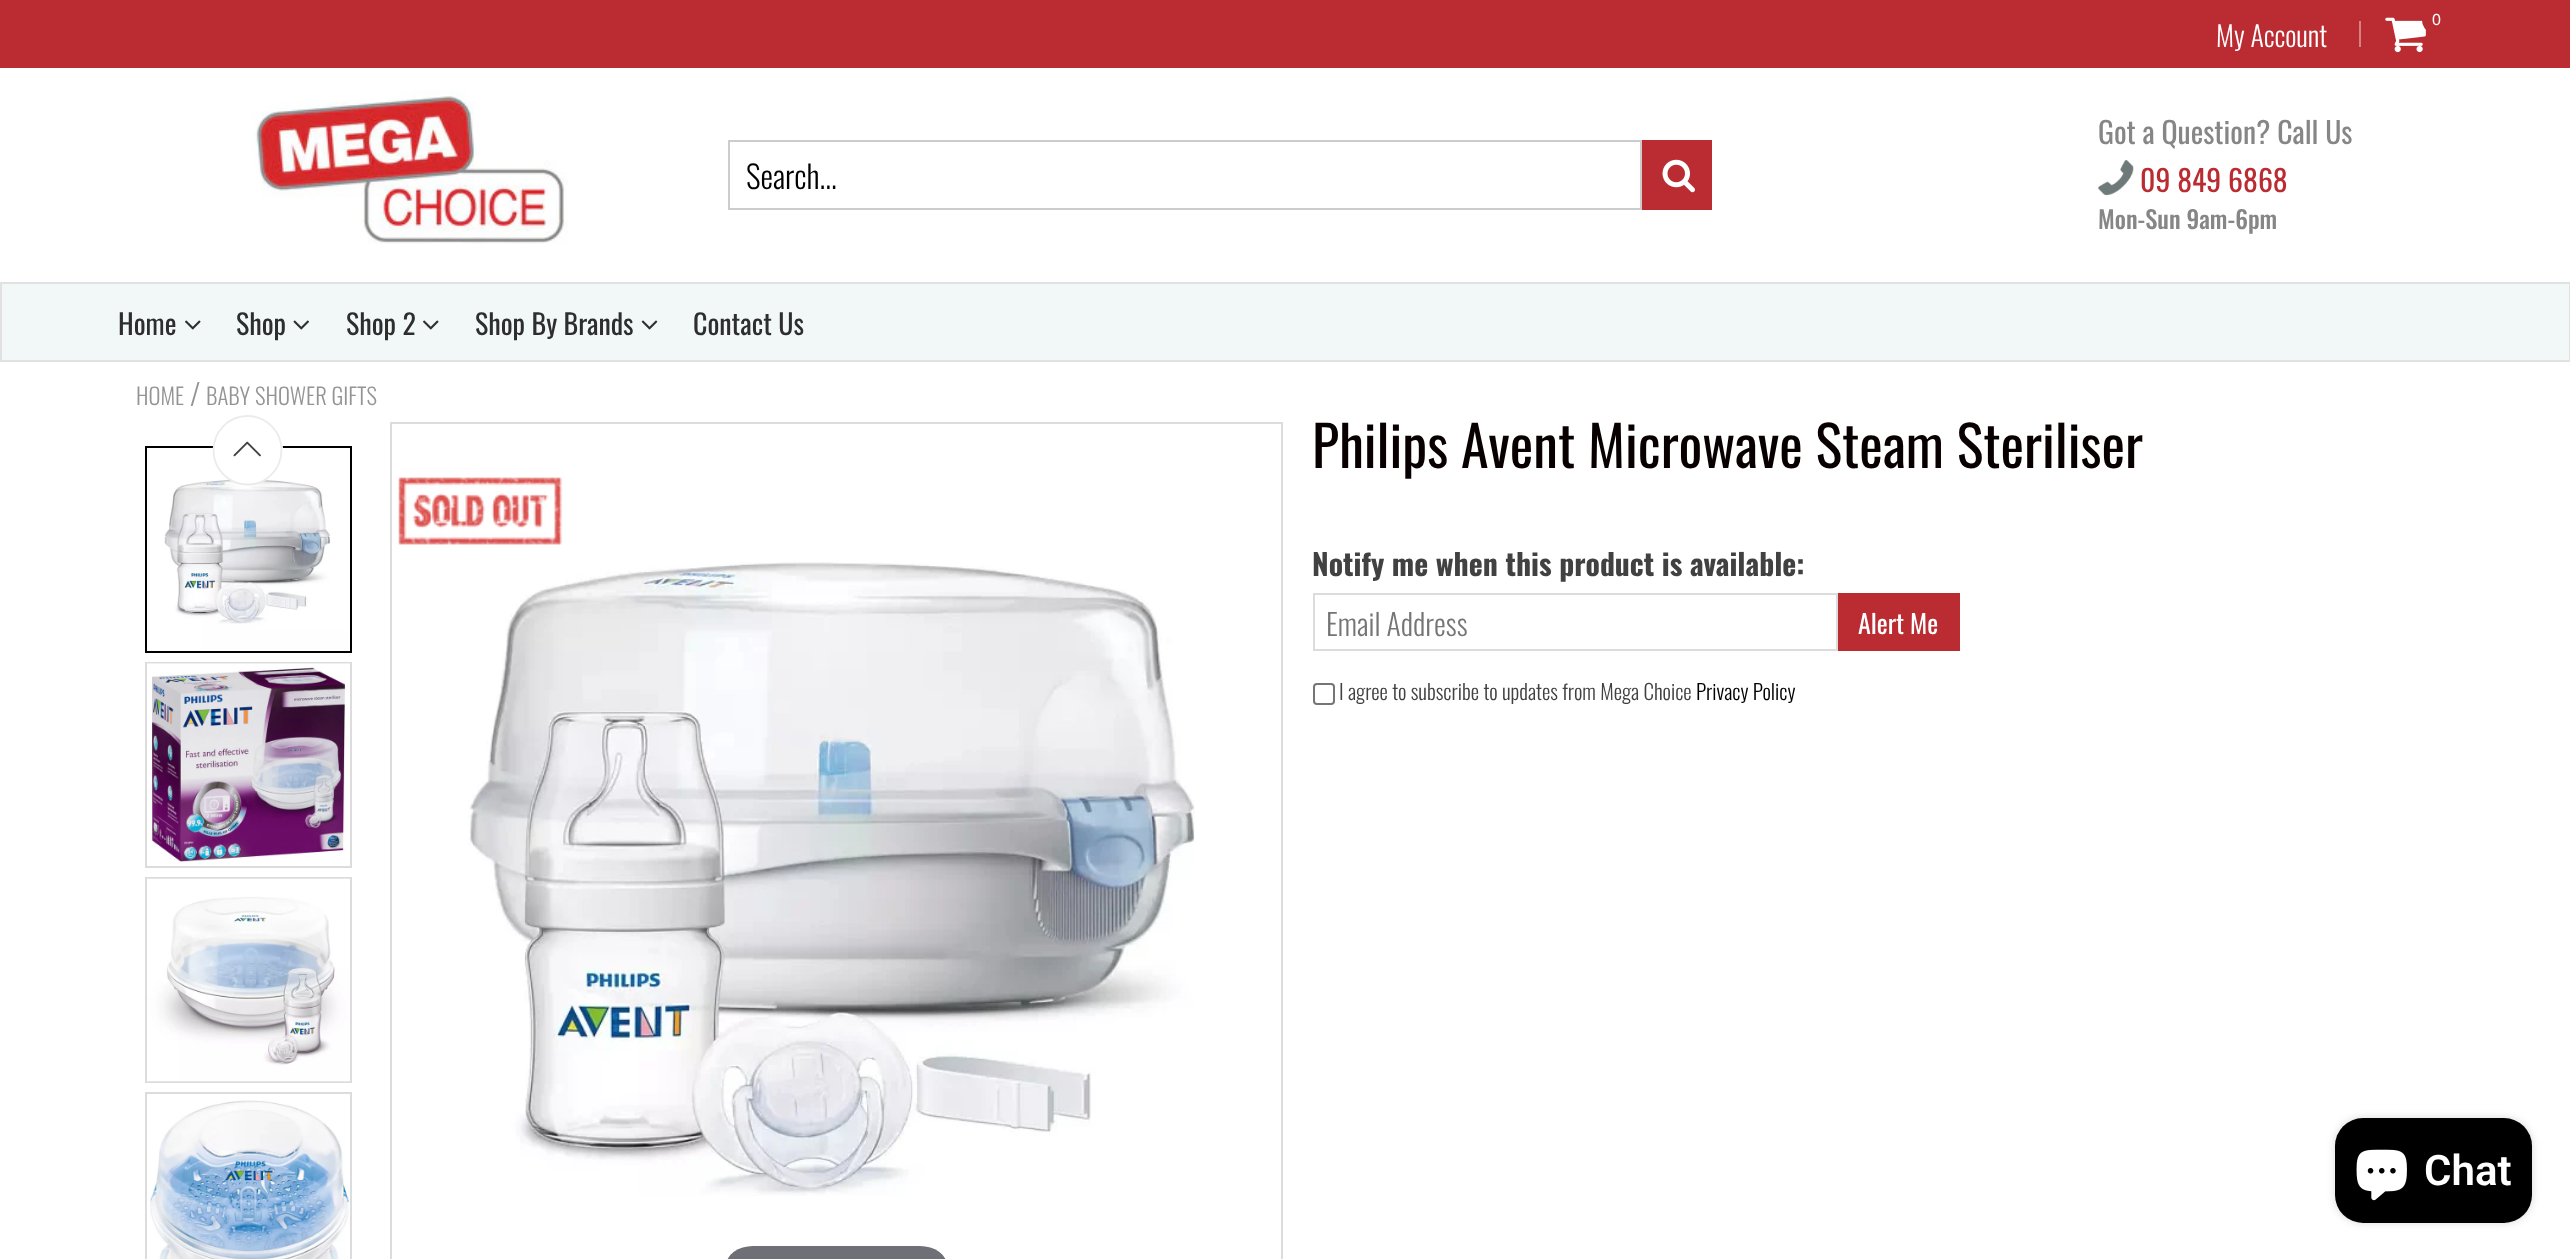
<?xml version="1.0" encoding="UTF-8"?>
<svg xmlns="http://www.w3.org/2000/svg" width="2570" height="1259">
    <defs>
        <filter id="blur1" x="-50%" y="-200%" width="200%" height="500%"><feGaussianBlur stdDeviation="4.5"/></filter>
    </defs>
    <rect width="100%" height="100%" fill="#FFFFFF"/>
    <rect x="0" y="0" width="2570" height="68" fill="#BA2C32"/>
    <rect x="2359" y="21" width="2" height="26" fill="#D68084"/>
    <image x="2385" y="17" width="41" height="36" href="img_01.png"/>
    <rect x="2422" y="4" width="32" height="31" rx="15.5" fill="#BA2C32"/>
    <text x="2432" y="25" font-family="Liberation Sans" font-size="16" fill="#FFFFFF">0</text>
    <text x="2216" y="47" font-family="Oswald" font-size="28" font-weight="300" fill="#FFFFFF">My Account</text>
    <image x="252" y="90" width="316" height="154" href="img_02.png"/>
    <rect x="729" y="141" width="912" height="68" fill="none" stroke="#CCCCCC" stroke-width="2"/>
    <text x="746" y="189" font-family="Oswald" font-size="31.5" font-weight="300" fill="#000000">Search...</text>
    <rect x="1642" y="140" width="70" height="70" fill="#BA2C32"/>
    <image x="1662" y="159" width="33" height="34" href="img_03.png"/>
    <text x="2098" y="144" font-family="Oswald" font-size="29.75" fill="#868686">Got a Question? Call Us</text>
    <image x="2098" y="160" width="36" height="36" href="img_04.png"/>
    <text x="2140" y="192" font-family="Oswald" font-size="29.75" fill="#BA2C32">09 849 6868</text>
    <text x="2098" y="229" font-family="Oswald" font-size="24.5" font-weight="500" fill="#868686">Mon-Sun 9am-6pm</text>
    <rect x="1" y="283" width="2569" height="78" fill="#F2F8F8" stroke="#E1E1E1" stroke-width="2"/>
    <text x="118" y="335" font-family="Oswald" font-size="28" fill="#2E2E2E">Home</text>
    <image x="185" y="320" width="16" height="10" href="img_05.png"/>
    <text x="236" y="335" font-family="Oswald" font-size="28" fill="#2E2E2E">Shop</text>
    <image x="293" y="320" width="16" height="10" href="img_06.png"/>
    <text x="346" y="335" font-family="Oswald" font-size="28" fill="#2E2E2E">Shop 2</text>
    <image x="423" y="320" width="16" height="10" href="img_05.png"/>
    <text x="475" y="335" font-family="Oswald" font-size="28" fill="#2E2E2E">Shop By Brands</text>
    <image x="641" y="320" width="17" height="10" href="img_07.png"/>
    <text x="693" y="335" font-family="Oswald" font-size="28" fill="#2E2E2E">Contact Us</text>
    <text x="136" y="405" font-family="Oswald" font-size="22.75" font-weight="300" fill="#949494">HOME</text>
    <text x="190" y="406" font-family="Oswald" font-size="29.75" font-weight="300" fill="#949494">/</text>
    <text x="206" y="405" font-family="Oswald" font-size="22.75" font-weight="300" fill="#949494">BABY SHOWER GIFTS</text>
    <rect x="146" y="447" width="205" height="205" fill="none" stroke="#000000" stroke-width="2"/>
    <image x="147" y="448" width="203" height="203" href="img_09.png"/>
    <path d="M 283 450 C 283 469 267 485 248 485 C 228 485 213 469 213 450 C 213 431 228 415 248 415 C 267 415 283 431 283 450 Z" fill="#FFFFFF"/>
    <path d="M 281.5 450 C 281.5 469 266.5 484.5 247.5 484.5 C 228.5 484.5 213.5 469 213.5 450 C 213.5 431.5 228.5 416 247.5 416 C 266.5 416 281.5 431.5 281.5 450 Z" fill="none" stroke="#EBEBEB" stroke-width="1.8"/>
    <image x="233" y="441" width="28" height="16" href="img_08.png"/>
    <rect x="146" y="663" width="205" height="204" fill="none" stroke="#DDDCDC" stroke-width="2"/>
    <image x="147" y="663" width="203" height="203" href="img_10.png"/>
    <rect x="146" y="878" width="205" height="204" fill="none" stroke="#DDDCDC" stroke-width="2"/>
    <image x="147" y="878" width="203" height="204" href="img_11.png"/>
    <rect x="146" y="1093" width="205" height="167" fill="none" stroke="#DDDCDC" stroke-width="2"/>
    <image x="147" y="1094" width="203" height="165" href="img_12.png"/>
    <rect x="391" y="423" width="891" height="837" fill="none" stroke="#DDDCDC" stroke-width="2"/>
    <image x="468" y="562" width="727" height="634" href="img_13.png"/>
    <rect x="726" y="1246" width="221" height="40" rx="27" fill="#6F7077"/>
    <image x="398" y="477" width="165" height="68" href="img_14.png"/>
    <text x="1312" y="468" font-family="Oswald" font-size="56" fill="#080000">Philips Avent Microwave Steam Steriliser</text>
    <text x="1312" y="576" font-family="Oswald" font-size="29.75" font-weight="700" fill="#414141">Notify me when this product is available:</text>
    <rect x="1314" y="594" width="523" height="56" fill="none" stroke="#DDDCDC" stroke-width="2"/>
    <text x="1326" y="636" font-family="Oswald" font-size="29.75" font-weight="300" fill="#757575">Email Address</text>
    <rect x="1838" y="593" width="122" height="58" fill="#BA2C32"/>
    <text x="1858" y="634" font-family="Oswald" font-size="26" fill="#FFFFFF">Alert Me</text>
    <rect x="1314" y="684" width="20" height="20" rx="3" fill="none" stroke="#767676" stroke-width="2"/>
    <text x="1339" y="700" font-family="Oswald" font-size="21" font-weight="300" fill="#414141">I agree to subscribe to updates from Mega Choice</text>
    <text x="1696" y="700" font-family="Oswald" font-size="21" font-weight="300" fill="#000000">Privacy Policy</text>
    <rect x="2335" y="1118" width="197" height="105" rx="28" fill="#000000" fill-opacity="0.15" filter="url(#blur1)"/>
    <rect x="2335" y="1118" width="197" height="105" rx="28" fill="#000000"/>
    <image x="2356" y="1149" width="51" height="52" href="img_15.png"/>
    <text x="2424" y="1185" font-family="Roboto" font-size="42" font-weight="600" fill="#FFFFFF">Chat</text>
</svg>
